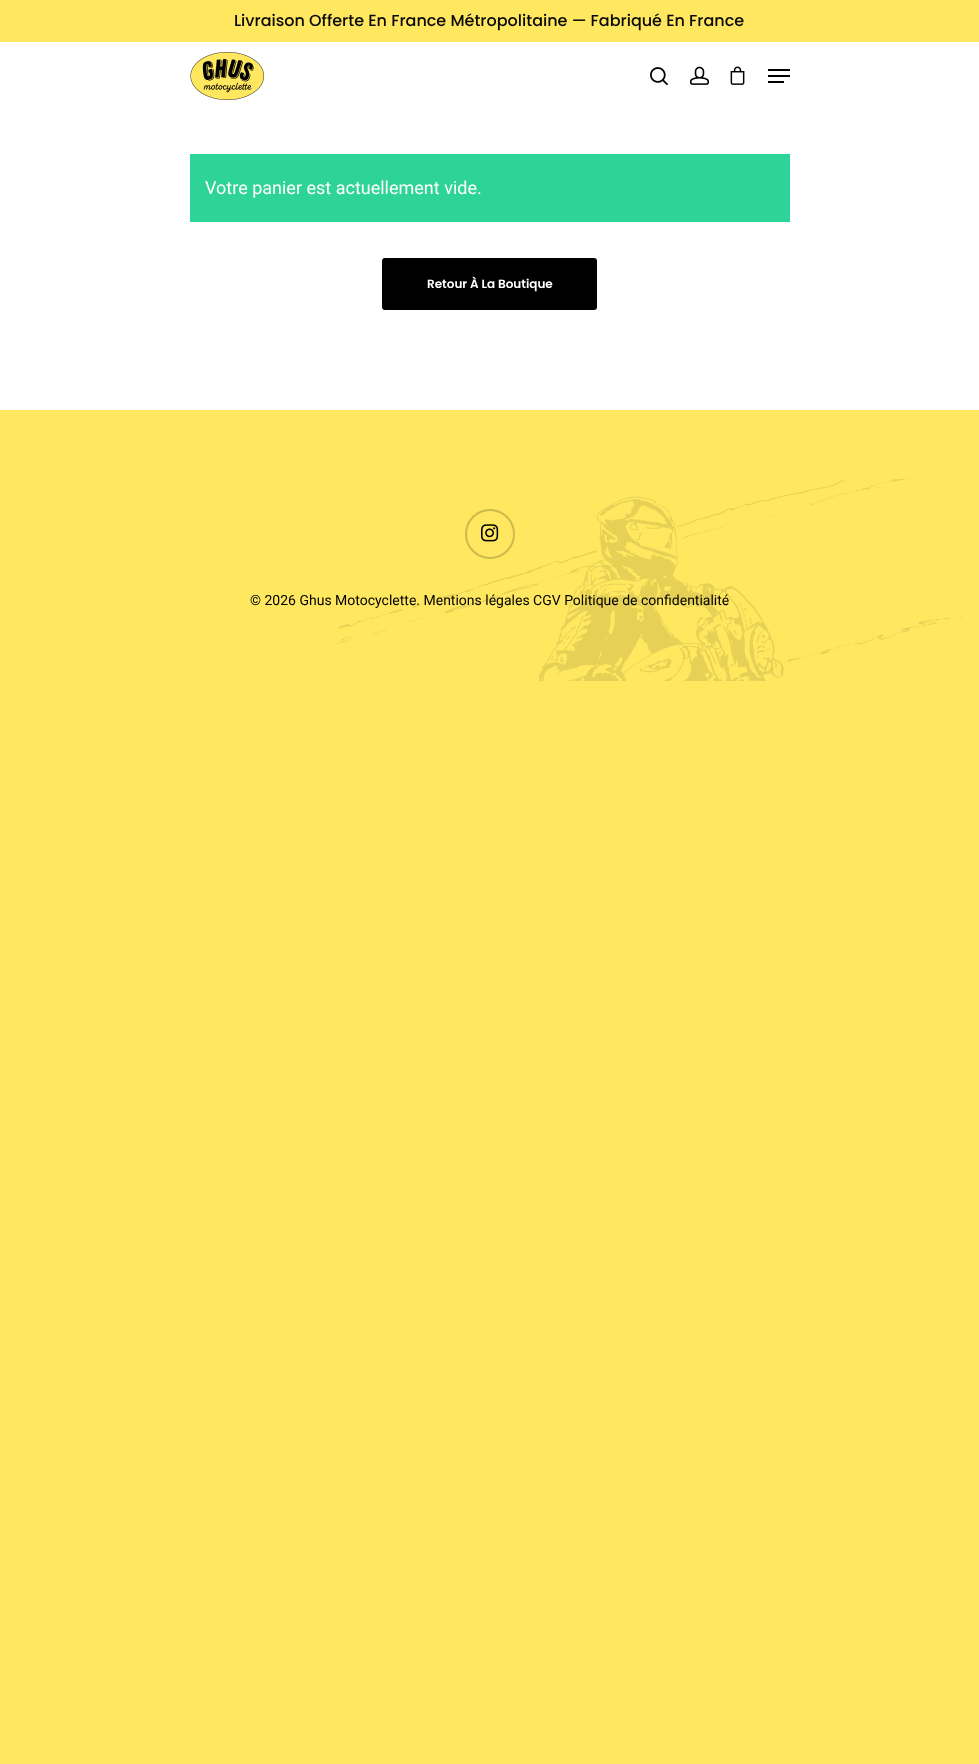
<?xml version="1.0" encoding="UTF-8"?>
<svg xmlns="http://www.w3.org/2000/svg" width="979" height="1764">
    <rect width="100%" height="100%" fill="#FFE85F"/>
    <rect x="0" y="42" width="979" height="368" fill="#FFFFFF"/>
    <text x="234" y="26" font-family="Poppins" font-size="16" font-weight="500" fill="#0A0A0A">Livraison Offerte En France Métropolitaine — Fabriqué En France</text>
    <image x="190" y="52" width="74" height="48" href="img_01.png"/>
    <image x="650" y="67" width="18" height="19" href="img_02.png"/>
    <image x="690" y="66" width="19" height="19" href="img_03.png"/>
    <image x="730" y="66" width="15" height="19" href="img_04.png"/>
    <rect x="768" y="69" width="22" height="2" fill="#000000"/>
    <rect x="768" y="81" width="16" height="2" fill="#000000"/>
    <rect x="768" y="75" width="22" height="2" fill="#000000"/>
    <rect x="190" y="154" width="600" height="68" fill="#2ED397"/>
    <text x="205" y="194" font-family="Roboto" font-size="18" fill="#FFFFFF">Votre panier est actuellement vide.</text>
    <rect x="382" y="258" width="215" height="52" rx="3" fill="#000000"/>
    <text x="427" y="288" font-family="Poppins" font-size="12" font-weight="600" fill="#FFFFFF">Retour À La Boutique</text>
    <image x="336" y="477" width="626" height="204" href="img_05.png"/>
    <image x="481" y="524" width="18" height="18" href="img_06.png"/>
    <circle cx="490" cy="534" r="24" fill="none" stroke="#CCBA4C" stroke-width="2"/>
    <text x="250" y="605" font-family="Roboto" font-size="14" fill="#000000">© 2026 Ghus Motocyclette. Mentions légales CGV Politique de confidentialité</text>
</svg>
